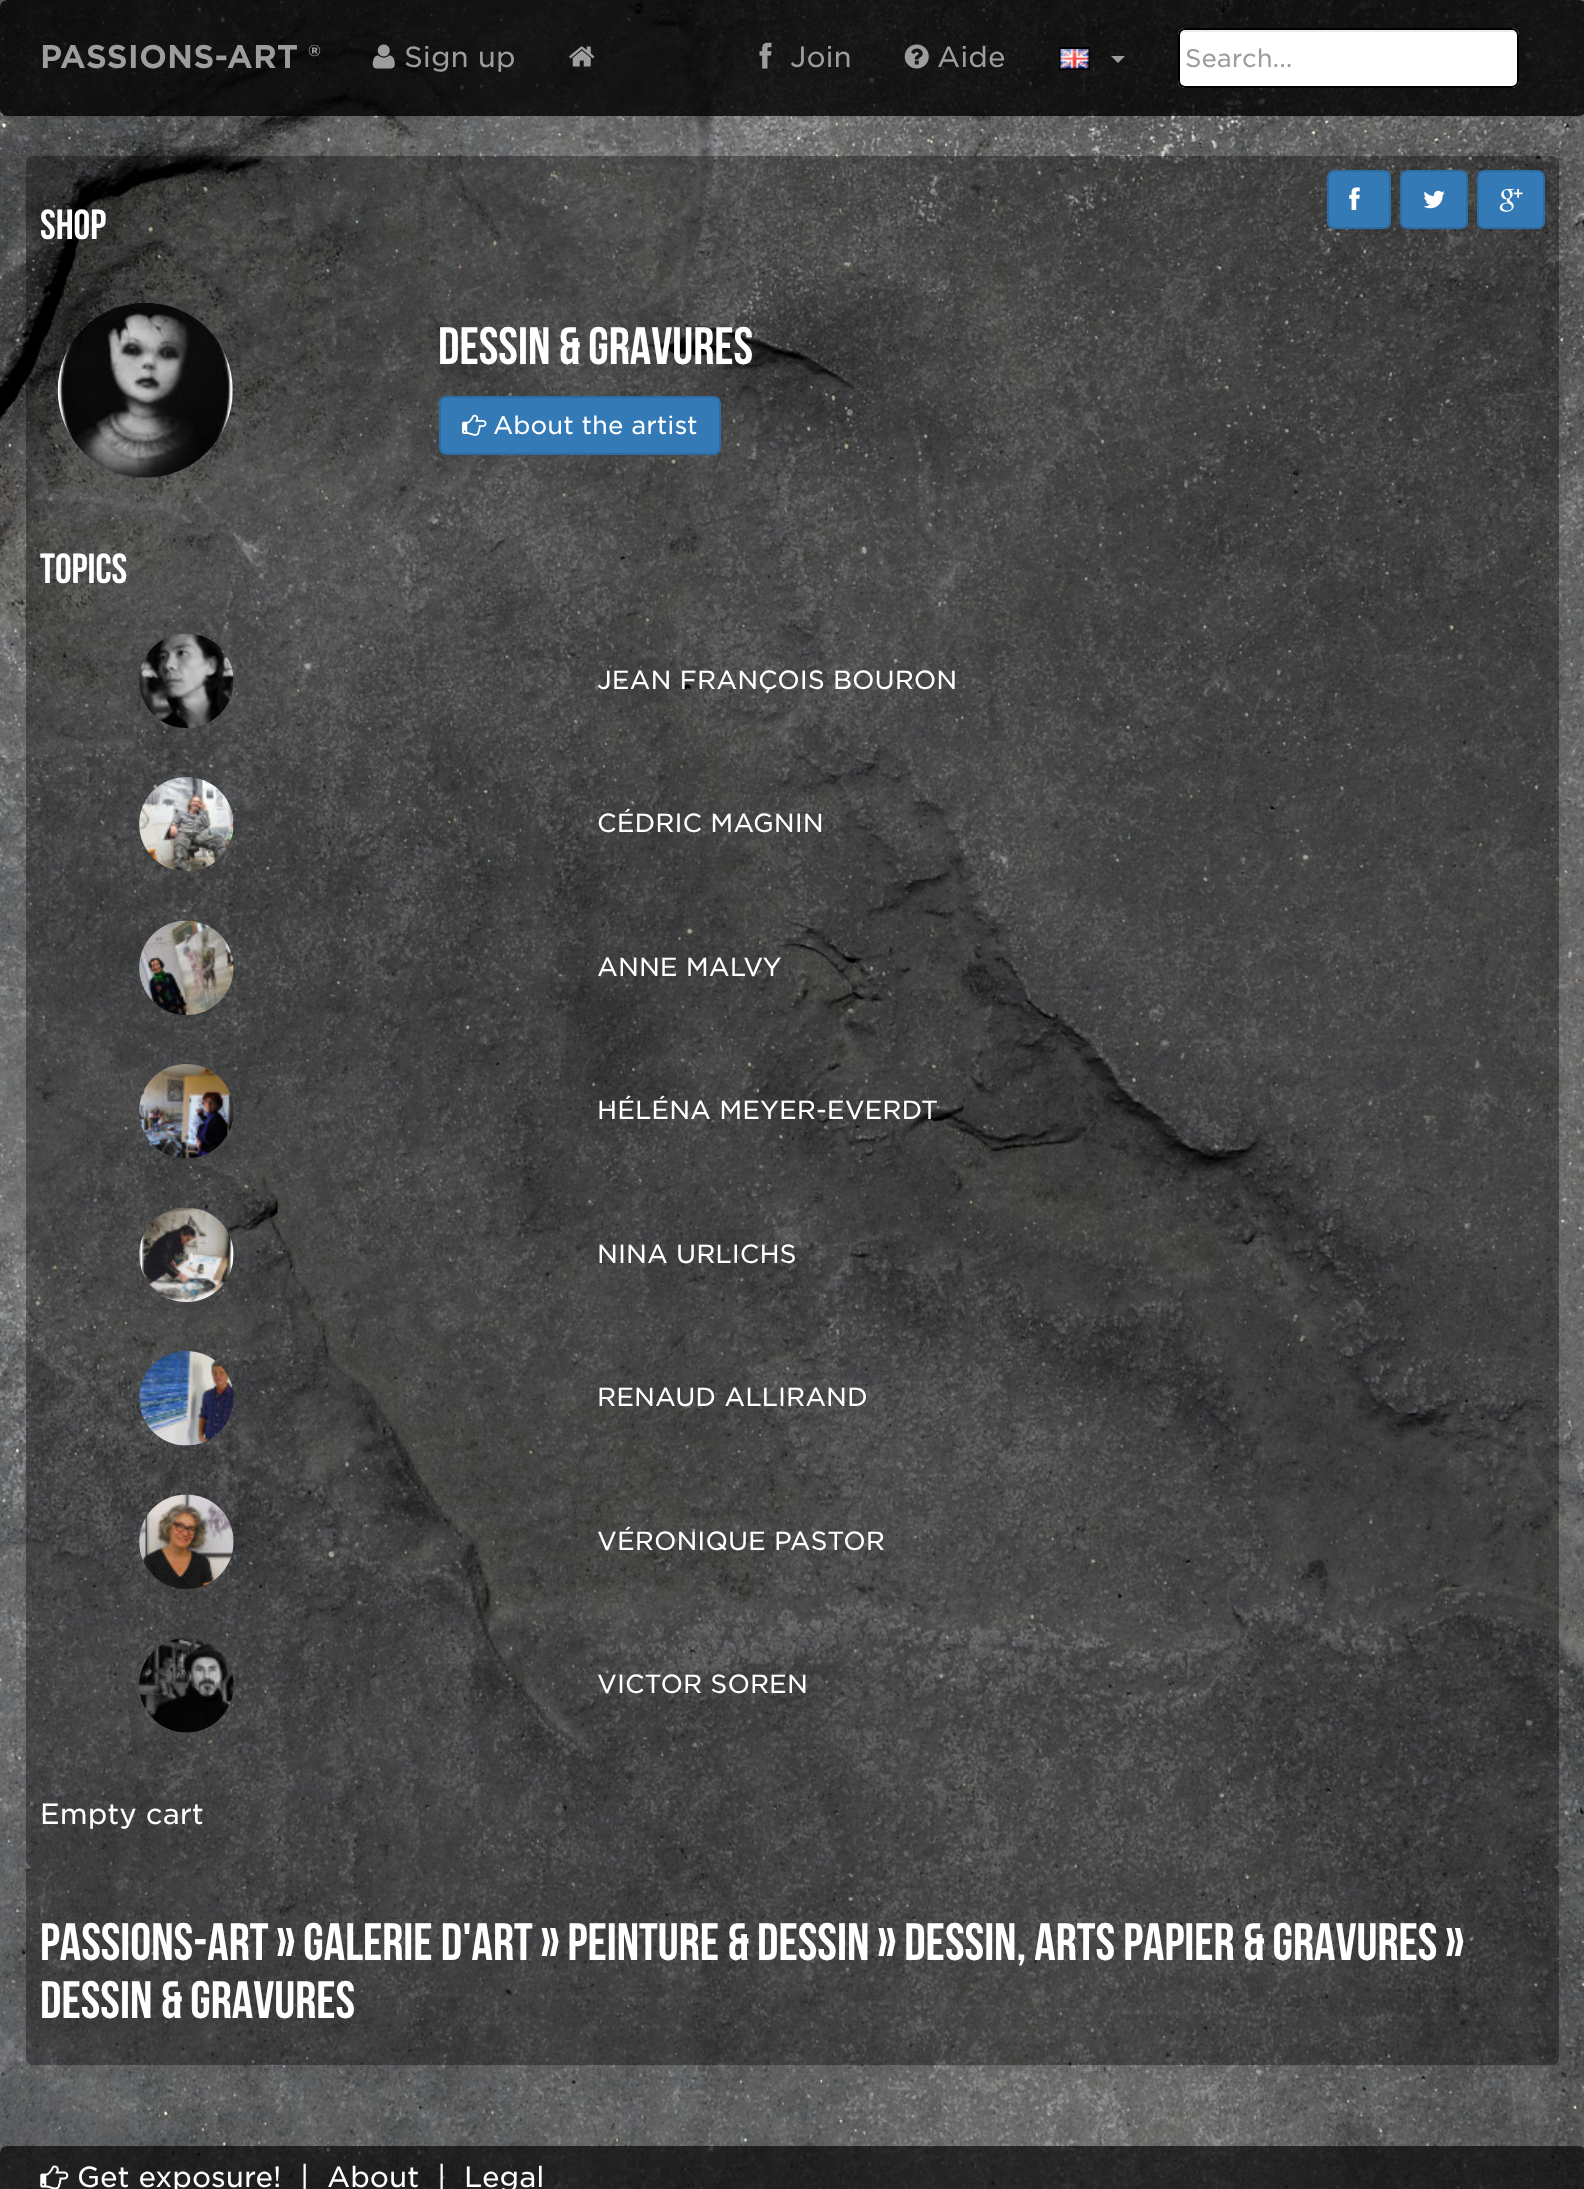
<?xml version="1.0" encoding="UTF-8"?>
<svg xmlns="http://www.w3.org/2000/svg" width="1584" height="2189">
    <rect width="100%" height="100%" fill="#FFFFFF"/>
    <image x="0" y="0" width="1584" height="2189" href="img_01.png"/>
    <rect x="0" y="0" width="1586" height="116" rx="7" fill="#000000" fill-opacity="0.8"/>
    <text x="40" y="68" font-family="'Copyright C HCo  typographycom'" font-size="31.5" fill="#9D9D9D">PASSIONS-ART ®</text>
    <image x="372" y="44" width="23" height="25" href="img_02.png"/>
    <text x="404" y="67" font-family="'Copyright C HCo  typographycom'" font-size="28" font-weight="300" fill="#9D9D9D">Sign up</text>
    <image x="569" y="46" width="26" height="21" href="img_03.png"/>
    <image x="759" y="42" width="13" height="27" href="img_04.png"/>
    <text x="790" y="67" font-family="'Copyright C HCo  typographycom'" font-size="28" font-weight="300" fill="#9D9D9D">Join</text>
    <image x="904" y="44" width="25" height="25" href="img_05.png"/>
    <text x="937" y="67" font-family="'Copyright C HCo  typographycom'" font-size="28" font-weight="300" fill="#9D9D9D">Aide</text>
    <rect x="1060" y="48" width="29" height="21" fill="none" stroke="#000000" stroke-width="2"/>
    <image x="1060" y="49" width="29" height="20" href="img_06.png"/>
    <path d="M 1111 56 H 1125 L 1118 63 Z" fill="#9D9D9D"/>
    <rect x="1178" y="28" width="341" height="60" rx="7" fill="#FFFFFF"/>
    <path d="M 1185 32 H 1512 C 1515 32 1517 34 1517 37 V 35 C 1517 32 1515 30 1512 30 H 1185 C 1182 30 1180 32 1180 35 V 37 C 1180 34 1182 32 1185 32 Z" fill="#ECECEC"/>
    <rect x="1179" y="29" width="339" height="58" rx="6" fill="none" stroke="#000000" stroke-width="2"/>
    <text x="1185" y="67" font-family="'Copyright C HCo  typographycom'" font-size="24.5" font-weight="300" fill="#9D9D9D">Search...</text>
    <rect x="26" y="156" width="1533" height="1711" rx="7" fill="#000000" fill-opacity="0.35"/>
    <text x="40" y="239" font-family="Bebas Neue" font-size="42" fill="#FFFFFF">SHOP</text>
    <rect x="1328" y="171" width="62" height="57" rx="6" fill="#337AB7" stroke="#2E6DA4" stroke-width="2"/>
    <image x="1349" y="187" width="11" height="23" href="img_07.png"/>
    <rect x="1401" y="171" width="66" height="57" rx="6" fill="#337AB7" stroke="#2E6DA4" stroke-width="2"/>
    <image x="1423" y="190" width="22" height="19" href="img_08.png"/>
    <rect x="1478" y="171" width="66" height="57" rx="6" fill="#337AB7" stroke="#2E6DA4" stroke-width="2"/>
    <image x="1499" y="189" width="24" height="23" href="img_09.png"/>
    <image x="57" y="303" width="176" height="175" href="img_10.png"/>
    <text x="438" y="364" font-family="Bebas Neue" font-size="52.5" fill="#FFFFFF">DESSIN &amp; GRAVURES</text>
    <rect x="440" y="397" width="280" height="57" rx="6" fill="#337AB7" stroke="#2E6DA4" stroke-width="2"/>
    <image x="462" y="414" width="25" height="22" href="img_11.png"/>
    <text x="493" y="434" font-family="'Copyright C HCo  typographycom'" font-size="24.5" font-weight="300" fill="#FFFFFF">About the artist</text>
    <text x="40" y="583" font-family="Bebas Neue" font-size="42" fill="#FFFFFF">TOPICS</text>
    <image x="139" y="633" width="95" height="95" href="img_12.png"/>
    <text x="597" y="689" font-family="'Copyright C HCo  typographycom'" font-size="25.25" font-weight="300" fill="#FFFFFF">JEAN FRANÇOIS BOURON</text>
    <image x="139" y="777" width="95" height="95" href="img_13.png"/>
    <text x="597" y="832" font-family="'Copyright C HCo  typographycom'" font-size="25.25" font-weight="300" fill="#FFFFFF">CÉDRIC MAGNIN</text>
    <image x="139" y="920" width="95" height="95" href="img_14.png"/>
    <text x="597" y="976" font-family="'Copyright C HCo  typographycom'" font-size="25.25" font-weight="300" fill="#FFFFFF">ANNE MALVY</text>
    <image x="139" y="1064" width="95" height="95" href="img_15.png"/>
    <text x="597" y="1119" font-family="'Copyright C HCo  typographycom'" font-size="25.25" font-weight="300" fill="#FFFFFF">HÉLÉNA MEYER-EVERDT</text>
    <image x="139" y="1207" width="95" height="95" href="img_16.png"/>
    <text x="597" y="1263" font-family="'Copyright C HCo  typographycom'" font-size="25.25" font-weight="300" fill="#FFFFFF">NINA URLICHS</text>
    <image x="139" y="1351" width="95" height="95" href="img_17.png"/>
    <text x="597" y="1406" font-family="'Copyright C HCo  typographycom'" font-size="25.25" font-weight="300" fill="#FFFFFF">RENAUD ALLIRAND</text>
    <image x="139" y="1494" width="95" height="95" href="img_18.png"/>
    <text x="597" y="1550" font-family="'Copyright C HCo  typographycom'" font-size="25.25" font-weight="300" fill="#FFFFFF">VÉRONIQUE PASTOR</text>
    <image x="139" y="1638" width="95" height="95" href="img_19.png"/>
    <text x="597" y="1693" font-family="'Copyright C HCo  typographycom'" font-size="25.25" font-weight="300" fill="#FFFFFF">VICTOR SOREN</text>
    <text x="40" y="1824" font-family="'Copyright C HCo  typographycom'" font-size="28" font-weight="300" fill="#FFFFFF">Empty cart</text>
    <rect x="26" y="1867" width="1533" height="198" rx="7" fill="#000000" fill-opacity="0.35"/>
    <text font-family="Bebas Neue" font-size="52.5" fill="#FFFFFF">
        <tspan x="40" y="1960">PASSIONS-ART » GALERIE D'ART » PEINTURE &amp; DESSIN » DESSIN, ARTS PAPIER &amp; GRAVURES »</tspan>
        <tspan x="40" y="2018">DESSIN &amp; GRAVURES</tspan>
    </text>
    <rect x="0" y="2146" width="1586" height="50" rx="7" fill="#000000" fill-opacity="0.65"/>
    <image x="40" y="2165" width="29" height="24" href="img_20.png"/>
    <text x="77" y="2187" font-family="'Copyright C HCo  typographycom'" font-size="28" font-weight="300" fill="#FFFFFF">Get exposure!</text>
    <text x="300" y="2187" font-family="'Copyright C HCo  typographycom'" font-size="28" font-weight="300" fill="#FFFFFF">|</text>
    <text x="327" y="2187" font-family="'Copyright C HCo  typographycom'" font-size="28" font-weight="300" fill="#FFFFFF">About</text>
    <text x="437" y="2187" font-family="'Copyright C HCo  typographycom'" font-size="28" font-weight="300" fill="#FFFFFF">|</text>
    <text x="464" y="2187" font-family="'Copyright C HCo  typographycom'" font-size="28" font-weight="300" fill="#FFFFFF">Legal</text>
</svg>
